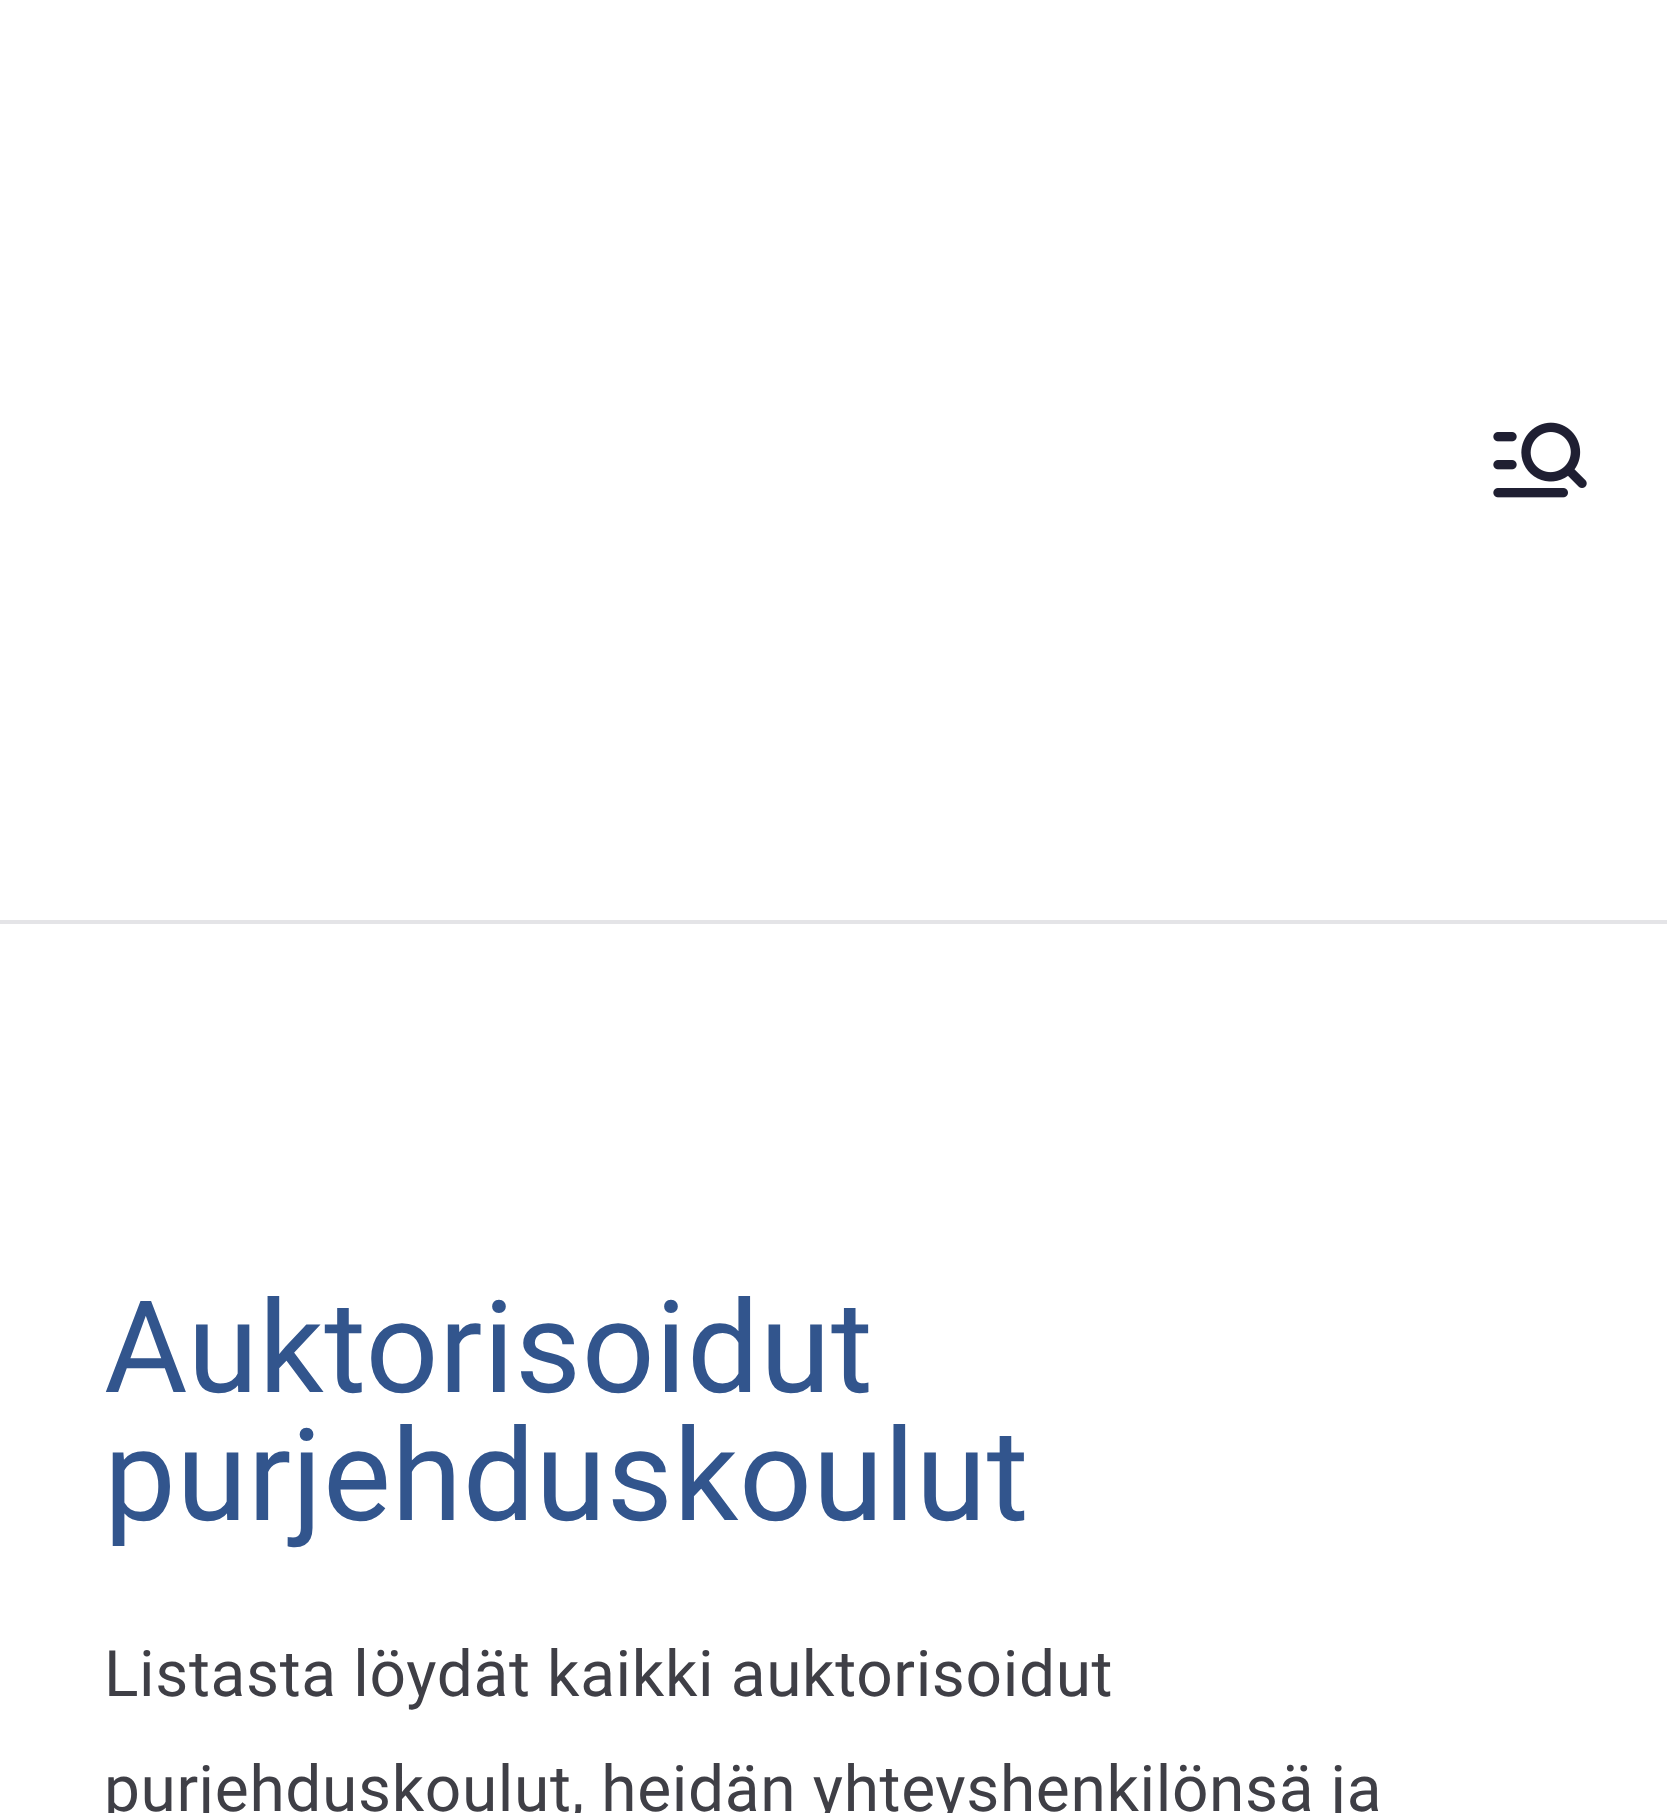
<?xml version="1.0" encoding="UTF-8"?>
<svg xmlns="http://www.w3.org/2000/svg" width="1667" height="1813">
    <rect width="100%" height="100%" fill="#E4E4E7"/>
    <rect x="0" y="0" width="1667" height="920" fill="#FFFFFF"/>
    <image x="1493" y="422" width="94" height="76" href="img_01.png"/>
    <rect x="0" y="924" width="1667" height="889" fill="#FFFFFF"/>
    <text font-family="Roboto" font-size="128" letter-spacing="0.65" fill="#32558D">
        <tspan x="104" y="1392">Auktorisoidut</tspan>
        <tspan x="104" y="1520">purjehduskoulut</tspan>
    </text>
    <text font-family="Roboto" font-size="64" letter-spacing="0.65" fill="#3F3F46">
        <tspan x="104" y="1696">Listasta löydät kaikki auktorisoidut</tspan>
        <tspan x="104" y="1811">purjehduskoulut, heidän yhteyshenkilönsä ja</tspan>
    </text>
</svg>
